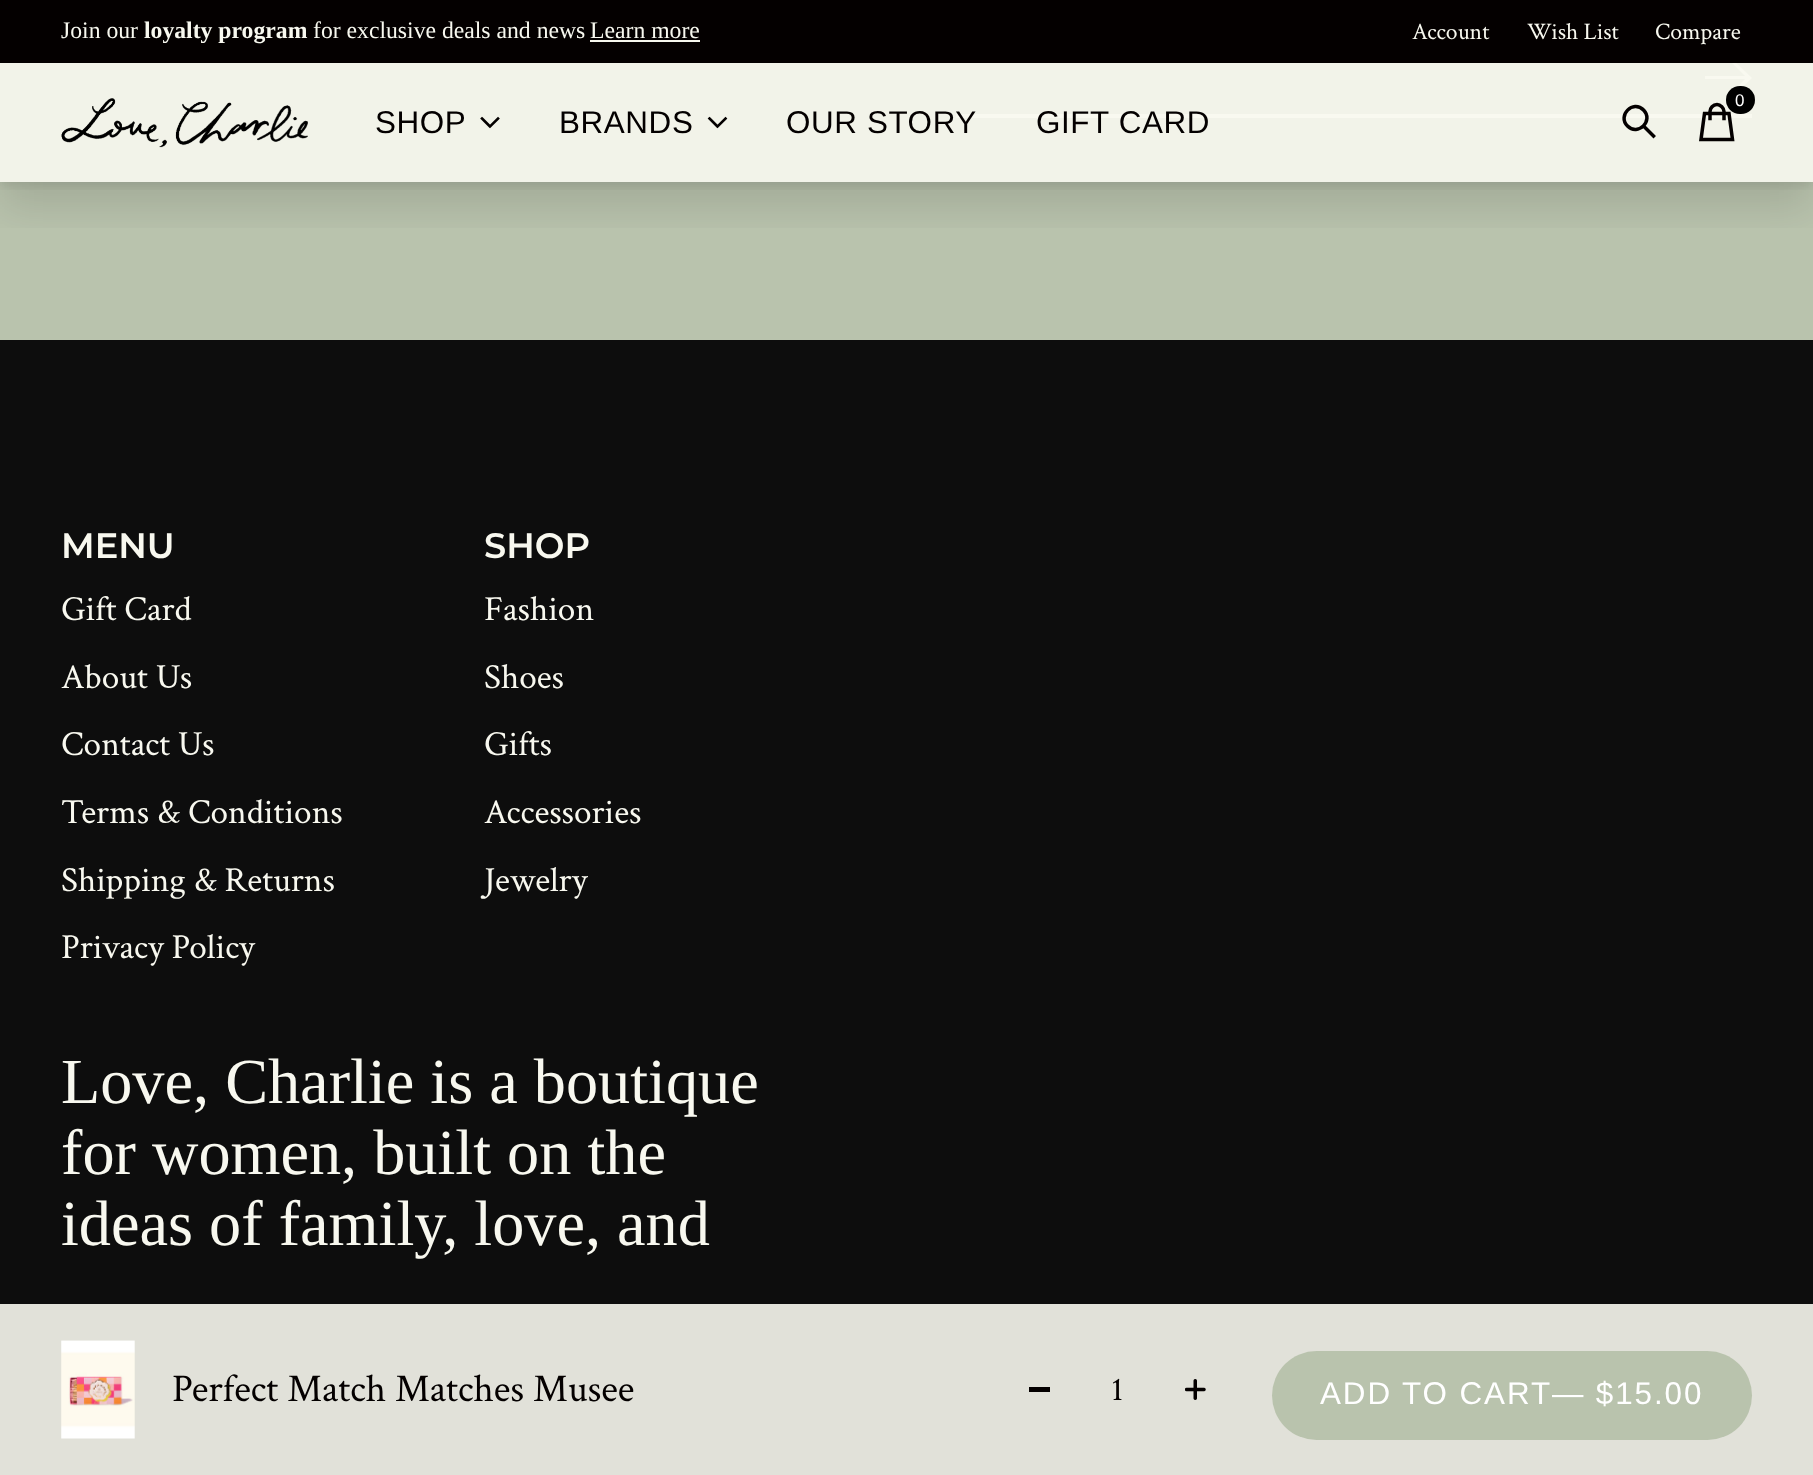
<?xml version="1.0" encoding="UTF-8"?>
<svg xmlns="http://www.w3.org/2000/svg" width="1813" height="1475">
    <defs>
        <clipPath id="clip1"><rect x="1705" y="54" width="47" height="48"/></clipPath>
        <clipPath id="clip2"><rect x="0" y="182" width="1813" height="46"/></clipPath>
        <filter id="blur1" x="-50%" y="-200%" width="200%" height="500%"><feGaussianBlur stdDeviation="22"/></filter>
        <clipPath id="clip3"><rect x="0" y="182" width="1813" height="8"/></clipPath>
        <filter id="blur2" x="-50%" y="-200%" width="200%" height="500%"><feGaussianBlur stdDeviation="5"/></filter>
    </defs>
    <rect width="100%" height="100%" fill="#B9C3AD"/>
    <g clip-path="url(#clip1)">
        <path d="M 1731 98 L 1752 78 L 1731 58 L 1729 60 L 1745 76 H 1704 V 79 H 1745 L 1729 96 Z" fill="#F8F8EF"/>
    </g>
    <rect x="956" y="114" width="796" height="4" fill="#F8F8EF"/>
    <g clip-path="url(#clip2)">
        <rect x="0" y="88" width="1813" height="119" fill="#000000" fill-opacity="0.12" filter="url(#blur1)"/>
    </g>
    <g clip-path="url(#clip3)">
        <rect x="0" y="68" width="1813" height="119" fill="#000000" fill-opacity="0.08" filter="url(#blur2)"/>
    </g>
    <rect x="0" y="0" width="1813" height="63" fill="#040000"/>
    <text x="61" y="38" font-family="Liberation Serif" font-size="23.7" fill="#F8F8EF">Join our</text>
    <text x="144" y="38" font-family="Liberation Serif" font-size="23.7" font-weight="700" fill="#F8F8EF">loyalty program</text>
    <text x="313" y="38" font-family="Liberation Serif" font-size="23.7" fill="#F8F8EF">for exclusive deals and news</text>
    <text x="590" y="38" font-family="Liberation Serif" font-size="23.7" fill="#F8F8EF">Learn more</text>
    <rect x="590" y="40" width="110" height="2" fill="#F8F8EF"/>
    <text x="1412" y="39" font-family="Crimson Text" font-size="23.7" fill="#F8F8EF">Account</text>
    <text x="1527" y="39" font-family="Crimson Text" font-size="23.7" fill="#F8F8EF">Wish List</text>
    <text x="1655" y="39" font-family="Crimson Text" font-size="23.7" fill="#F8F8EF">Compare</text>
    <rect x="0" y="63" width="1813" height="119" fill="#F8F8EF" fill-opacity="0.9"/>
    <image x="61" y="98" width="247" height="50" href="img_01.png"/>
    <path d="M 1732.5 139.5 H 1701 L 1704.5 113.5 H 1729 Z M 1710 118.5 V 111.5 C 1710 108 1713 104.5 1717 104.5 C 1720.5 104.5 1724 108 1724 111.5 V 118.5" fill="none" stroke="#040000" stroke-width="3.5" stroke-linecap="square"/>
    <rect x="1726" y="86" width="29" height="28" rx="14" fill="#000000"/>
    <text x="1735" y="106" font-family="Liberation Sans" font-size="17" fill="#FFFFFF">0</text>
    <path d="M 1643.5 126 L 1653.5 136 M 1643.5 110 C 1654 120.5 1638 136.5 1627.5 126 C 1617 115.5 1633 99.5 1643.5 110" fill="none" stroke="#040000" stroke-width="3.5" stroke-linecap="square"/>
    <text x="375" y="133" font-family="Liberation Sans" font-size="31.4" letter-spacing="0.6" fill="#040000">SHOP</text>
    <path d="M 482 118.5 L 490 126.5 M 498 118.5 L 490 126.5" fill="none" stroke="#040000" stroke-width="2.6" stroke-linecap="square"/>
    <text x="559" y="133" font-family="Liberation Sans" font-size="31.4" letter-spacing="0.6" fill="#040000">BRANDS</text>
    <path d="M 709.5 118.5 L 717.5 126.5 M 725.5 118.5 L 717.5 126.5" fill="none" stroke="#040000" stroke-width="2.6" stroke-linecap="square"/>
    <text x="786" y="133" font-family="Liberation Sans" font-size="31.4" letter-spacing="0.6" fill="#040000">OUR STORY</text>
    <text x="1036" y="133" font-family="Liberation Sans" font-size="31.4" letter-spacing="0.6" fill="#040000">GIFT CARD</text>
    <rect x="0" y="340" width="1813" height="1135" fill="#0D0D0D"/>
    <text x="61" y="558" font-family="Montserrat" font-size="35.25" font-weight="600" fill="#F8F8EF">MENU</text>
    <text font-family="Crimson Text" font-size="35.25" fill="#F8F8EF">
        <tspan x="61" y="620">Gift Card</tspan>
        <tspan x="61" y="688">About Us</tspan>
        <tspan x="61" y="755">Contact Us</tspan>
        <tspan x="61" y="823">Terms &amp; Conditions</tspan>
        <tspan x="61" y="891">Shipping &amp; Returns</tspan>
        <tspan x="61" y="958">Privacy Policy</tspan>
    </text>
    <text x="484" y="558" font-family="Montserrat" font-size="35.25" font-weight="600" fill="#F8F8EF">SHOP</text>
    <text font-family="Crimson Text" font-size="35.25" fill="#F8F8EF">
        <tspan x="484" y="620">Fashion</tspan>
        <tspan x="484" y="688">Shoes</tspan>
        <tspan x="484" y="755">Gifts</tspan>
        <tspan x="484" y="823">Accessories</tspan>
        <tspan x="484" y="891">Jewelry</tspan>
    </text>
    <text font-family="Liberation Serif" font-size="64.25" fill="#F8F8EF">
        <tspan x="61" y="1103">Love, Charlie is a boutique</tspan>
        <tspan x="61" y="1174">for women, built on the</tspan>
        <tspan x="61" y="1245">ideas of family, love, and</tspan>
    </text>
    <rect x="0" y="1304" width="1813" height="171" fill="#F8F8EF" fill-opacity="0.9"/>
    <image x="61" y="1340" width="74" height="99" href="img_02.png"/>
    <text x="172" y="1401" font-family="Crimson Text" font-size="39.25" fill="#040000">Perfect Match Matches Musee</text>
    <rect x="1029" y="1387" width="21" height="5" fill="#040000"/>
    <text x="1111" y="1400" font-family="Crimson Text" font-size="34" fill="#040000">1</text>
    <image x="1185" y="1379" width="21" height="21" href="img_03.png"/>
    <rect x="1272" y="1351" width="480" height="89" rx="44.5" fill="#B9C3AD"/>
    <text x="1320" y="1404" font-family="Liberation Sans" font-size="31.4" letter-spacing="1.9" fill="#FFFFFF">ADD TO CART— $15.00</text>
</svg>
